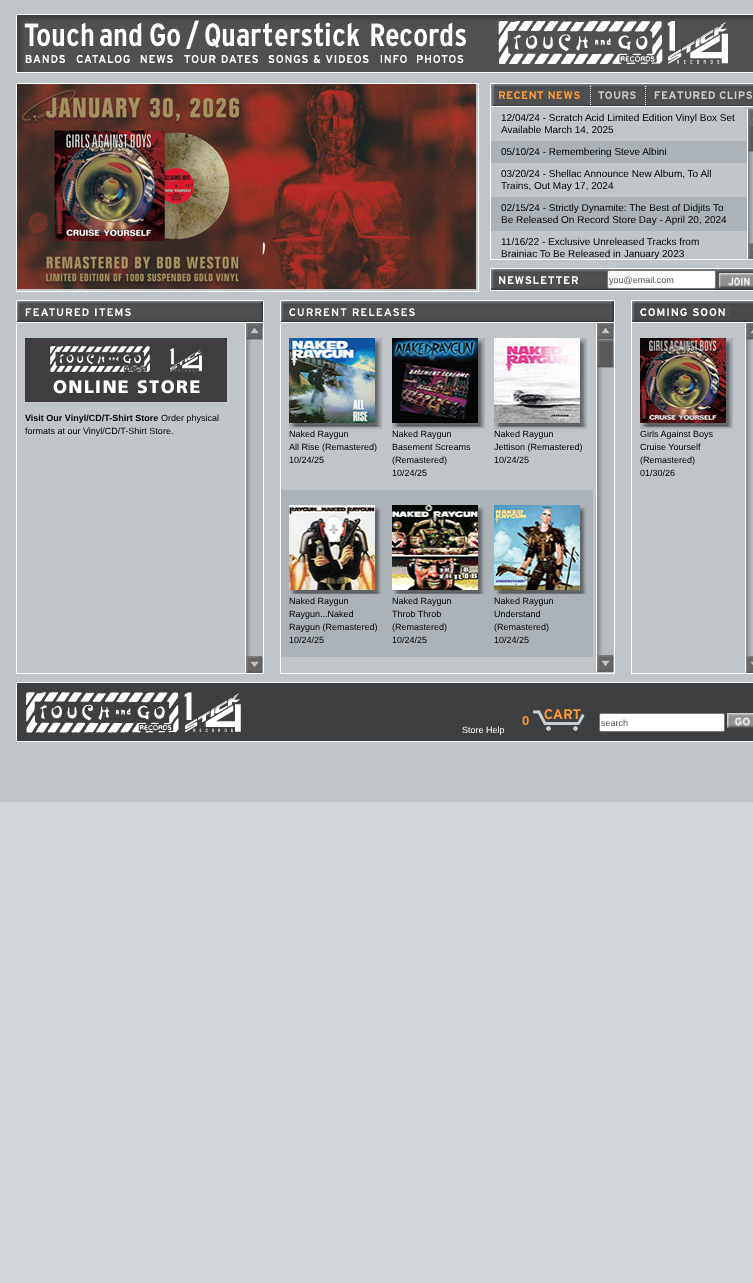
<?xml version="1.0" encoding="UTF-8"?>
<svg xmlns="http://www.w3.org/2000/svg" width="753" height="1283">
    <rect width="100%" height="100%" fill="#D3D7D9"/>
    <rect x="0" y="0" width="753" height="802" fill="#C0C5C9"/>
    <rect x="17" y="15" width="736" height="57" fill="#3D3F40"/>
    <image x="20" y="18" width="733" height="54" href="img_01.png"/>
    <rect x="16.5" y="14.5" width="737" height="58" fill="none" stroke="#FFFFFF"/>
    <image x="24" y="20" width="442" height="29" href="img_02.png"/>
    <image x="498" y="21" width="230" height="43" href="img_03.png"/>
    <image x="25" y="55" width="40" height="8" href="img_04.png"/>
    <image x="76" y="55" width="54" height="8" href="img_05.png"/>
    <image x="140" y="55" width="33" height="8" href="img_06.png"/>
    <image x="184" y="55" width="74" height="8" href="img_07.png"/>
    <image x="268" y="55" width="101" height="8" href="img_08.png"/>
    <image x="380" y="55" width="27" height="8" href="img_09.png"/>
    <image x="417" y="55" width="47" height="8" href="img_10.png"/>
    <rect x="16.5" y="83.5" width="462" height="208" fill="none" stroke="#FFFFFF"/>
    <image x="17" y="84" width="459" height="205" href="img_11.png"/>
    <rect x="491" y="107" width="262" height="124" fill="#ACB3B8"/>
    <rect x="490.5" y="83.5" width="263" height="176" fill="none" stroke="#FFFFFF"/>
    <rect x="591" y="105" width="162" height="1" fill="#3D3F40"/>
    <rect x="491" y="106" width="262" height="1" fill="#FFFFFF"/>
    <image x="491" y="84" width="100" height="22" href="img_12.png"/>
    <image x="591" y="84" width="55" height="21" href="img_13.png"/>
    <image x="646" y="84" width="107" height="21" href="img_14.png"/>
    <rect x="491" y="107" width="256" height="34" fill="#C0C5C9"/>
    <text font-family="Liberation Sans" font-size="10" fill="#000000">
        <tspan x="501" y="121">12/04/24 - Scratch Acid Limited Edition Vinyl Box Set</tspan>
        <tspan x="501" y="133">Available March 14, 2025</tspan>
    </text>
    <text x="501" y="155" font-family="Liberation Sans" font-size="10" fill="#000000">05/10/24 - Remembering Steve Albini</text>
    <rect x="491" y="163" width="256" height="34" fill="#C0C5C9"/>
    <text font-family="Liberation Sans" font-size="10" fill="#000000">
        <tspan x="501" y="177">03/20/24 - Shellac Announce New Album, To All</tspan>
        <tspan x="501" y="189">Trains, Out May 17, 2024</tspan>
    </text>
    <text font-family="Liberation Sans" font-size="10" fill="#000000">
        <tspan x="501" y="211">02/15/24 - Strictly Dynamite: The Best of Didjits To</tspan>
        <tspan x="501" y="223">Be Released On Record Store Day - April 20, 2024</tspan>
    </text>
    <text font-family="Liberation Sans" font-size="10" fill="#000000">
        <tspan x="501" y="245">11/16/22 - Exclusive Unreleased Tracks from</tspan>
        <tspan x="501" y="257">Brainiac To Be Released in January 2023</tspan>
    </text>
    <rect x="747" y="109" width="1" height="150" fill="#FFFFFF"/>
    <image x="748" y="109" width="5" height="15" href="img_15.png"/>
    <image x="748" y="124" width="5" height="28" href="img_16.png"/>
    <image x="748" y="152" width="5" height="91" href="img_17.png"/>
    <image x="748" y="243" width="5" height="16" href="img_18.png"/>
    <rect x="490.5" y="268.5" width="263" height="22" fill="none" stroke="#FFFFFF"/>
    <image x="491" y="269" width="262" height="21" href="img_19.png"/>
    <rect x="607.5" y="270.5" width="108" height="18" rx="1.5" fill="#FFFFFF" stroke="#767676"/>
    <text x="609" y="283" font-family="Liberation Sans" font-size="9" fill="#4E5051">you@email.com</text>
    <image x="719" y="273" width="34" height="15" href="img_20.png"/>
    <rect x="16.5" y="300.5" width="247" height="373" fill="none" stroke="#FFFFFF"/>
    <rect x="17" y="322" width="246" height="1" fill="#FFFFFF"/>
    <image x="17" y="301" width="246" height="21" href="img_21.png"/>
    <rect x="245" y="323" width="1" height="350" fill="#FFFFFF"/>
    <image x="246" y="323" width="17" height="17" href="img_22.png"/>
    <image x="25" y="338" width="202" height="64" href="img_23.png"/>
    <text x="25" y="421" font-family="Liberation Sans" font-size="9" font-weight="700" fill="#000000">Visit Our Vinyl/CD/T-Shirt Store</text>
    <text x="161" y="421" font-family="Liberation Sans" font-size="9" fill="#000000">Order physical</text>
    <text x="25" y="434" font-family="Liberation Sans" font-size="9" fill="#000000">formats at our Vinyl/CD/T-Shirt Store.</text>
    <image x="246" y="340" width="17" height="316" href="img_24.png"/>
    <image x="246" y="656" width="17" height="17" href="img_25.png"/>
    <rect x="280.5" y="300.5" width="334" height="373" fill="none" stroke="#FFFFFF"/>
    <rect x="281" y="322" width="333" height="1" fill="#FFFFFF"/>
    <image x="281" y="301" width="333" height="21" href="img_26.png"/>
    <rect x="596" y="323" width="1" height="349" fill="#FFFFFF"/>
    <image x="597" y="323" width="17" height="17" href="img_22.png"/>
    <image x="597" y="340" width="17" height="28" href="img_27.png"/>
    <image x="289" y="338" width="93" height="91" href="img_28.png"/>
    <image x="289" y="338" width="86" height="85" href="img_29.png"/>
    <text font-family="Liberation Sans" font-size="9" fill="#000000">
        <tspan x="289" y="437">Naked Raygun</tspan>
        <tspan x="289" y="450">All Rise (Remastered)</tspan>
        <tspan x="289" y="463">10/24/25</tspan>
    </text>
    <image x="392" y="338" width="93" height="91" href="img_28.png"/>
    <image x="392" y="338" width="86" height="85" href="img_30.png"/>
    <text font-family="Liberation Sans" font-size="9" fill="#000000">
        <tspan x="392" y="437">Naked Raygun</tspan>
        <tspan x="392" y="450">Basement Screams</tspan>
        <tspan x="392" y="463">(Remastered)</tspan>
        <tspan x="392" y="476">10/24/25</tspan>
    </text>
    <image x="494" y="338" width="93" height="91" href="img_28.png"/>
    <image x="494" y="338" width="86" height="85" href="img_31.png"/>
    <text font-family="Liberation Sans" font-size="9" fill="#000000">
        <tspan x="494" y="437">Naked Raygun</tspan>
        <tspan x="494" y="450">Jettison (Remastered)</tspan>
        <tspan x="494" y="463">10/24/25</tspan>
    </text>
    <rect x="281" y="490" width="312" height="167" fill="#ACB3B8"/>
    <image x="289" y="505" width="93" height="90" href="img_32.png"/>
    <image x="289" y="505" width="86" height="85" href="img_33.png"/>
    <text font-family="Liberation Sans" font-size="9" fill="#000000">
        <tspan x="289" y="604">Naked Raygun</tspan>
        <tspan x="289" y="617">Raygun...Naked</tspan>
        <tspan x="289" y="630">Raygun (Remastered)</tspan>
        <tspan x="289" y="643">10/24/25</tspan>
    </text>
    <image x="392" y="505" width="93" height="90" href="img_32.png"/>
    <image x="392" y="505" width="86" height="85" href="img_34.png"/>
    <text font-family="Liberation Sans" font-size="9" fill="#000000">
        <tspan x="392" y="604">Naked Raygun</tspan>
        <tspan x="392" y="617">Throb Throb</tspan>
        <tspan x="392" y="630">(Remastered)</tspan>
        <tspan x="392" y="643">10/24/25</tspan>
    </text>
    <image x="494" y="505" width="93" height="90" href="img_32.png"/>
    <image x="494" y="505" width="86" height="85" href="img_35.png"/>
    <text font-family="Liberation Sans" font-size="9" fill="#000000">
        <tspan x="494" y="604">Naked Raygun</tspan>
        <tspan x="494" y="617">Understand</tspan>
        <tspan x="494" y="630">(Remastered)</tspan>
        <tspan x="494" y="643">10/24/25</tspan>
    </text>
    <image x="597" y="368" width="17" height="287" href="img_36.png"/>
    <image x="597" y="655" width="17" height="17" href="img_25.png"/>
    <rect x="631.5" y="300.5" width="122" height="373" fill="none" stroke="#FFFFFF"/>
    <rect x="632" y="322" width="121" height="1" fill="#FFFFFF"/>
    <image x="632" y="301" width="121" height="21" href="img_37.png"/>
    <rect x="745" y="323" width="1" height="350" fill="#FFFFFF"/>
    <image x="746" y="323" width="7" height="17" href="img_38.png"/>
    <image x="640" y="338" width="93" height="91" href="img_28.png"/>
    <image x="640" y="338" width="86" height="85" href="img_39.png"/>
    <text font-family="Liberation Sans" font-size="9" fill="#000000">
        <tspan x="640" y="437">Girls Against Boys</tspan>
        <tspan x="640" y="450">Cruise Yourself</tspan>
        <tspan x="640" y="463">(Remastered)</tspan>
        <tspan x="640" y="476">01/30/26</tspan>
    </text>
    <image x="746" y="340" width="7" height="316" href="img_40.png"/>
    <image x="746" y="656" width="7" height="17" href="img_41.png"/>
    <rect x="16.5" y="682.5" width="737" height="59" fill="#3D3F40" stroke="#FFFFFF"/>
    <image x="26" y="692" width="215" height="41" href="img_42.png"/>
    <image x="533" y="709" width="52" height="22" href="img_43.png"/>
    <text x="522" y="725" font-family="Liberation Sans" font-size="13" font-weight="700" fill="#FF9933">0</text>
    <rect x="599.5" y="713.5" width="125" height="18" rx="1.5" fill="#FFFFFF" stroke="#767676"/>
    <text x="601" y="726" font-family="Liberation Sans" font-size="9" fill="#4E5051">search</text>
    <image x="727" y="713" width="26" height="15" href="img_44.png"/>
    <text x="462" y="733" font-family="Liberation Sans" font-size="9" fill="#FFFFFF">Store Help</text>
</svg>
